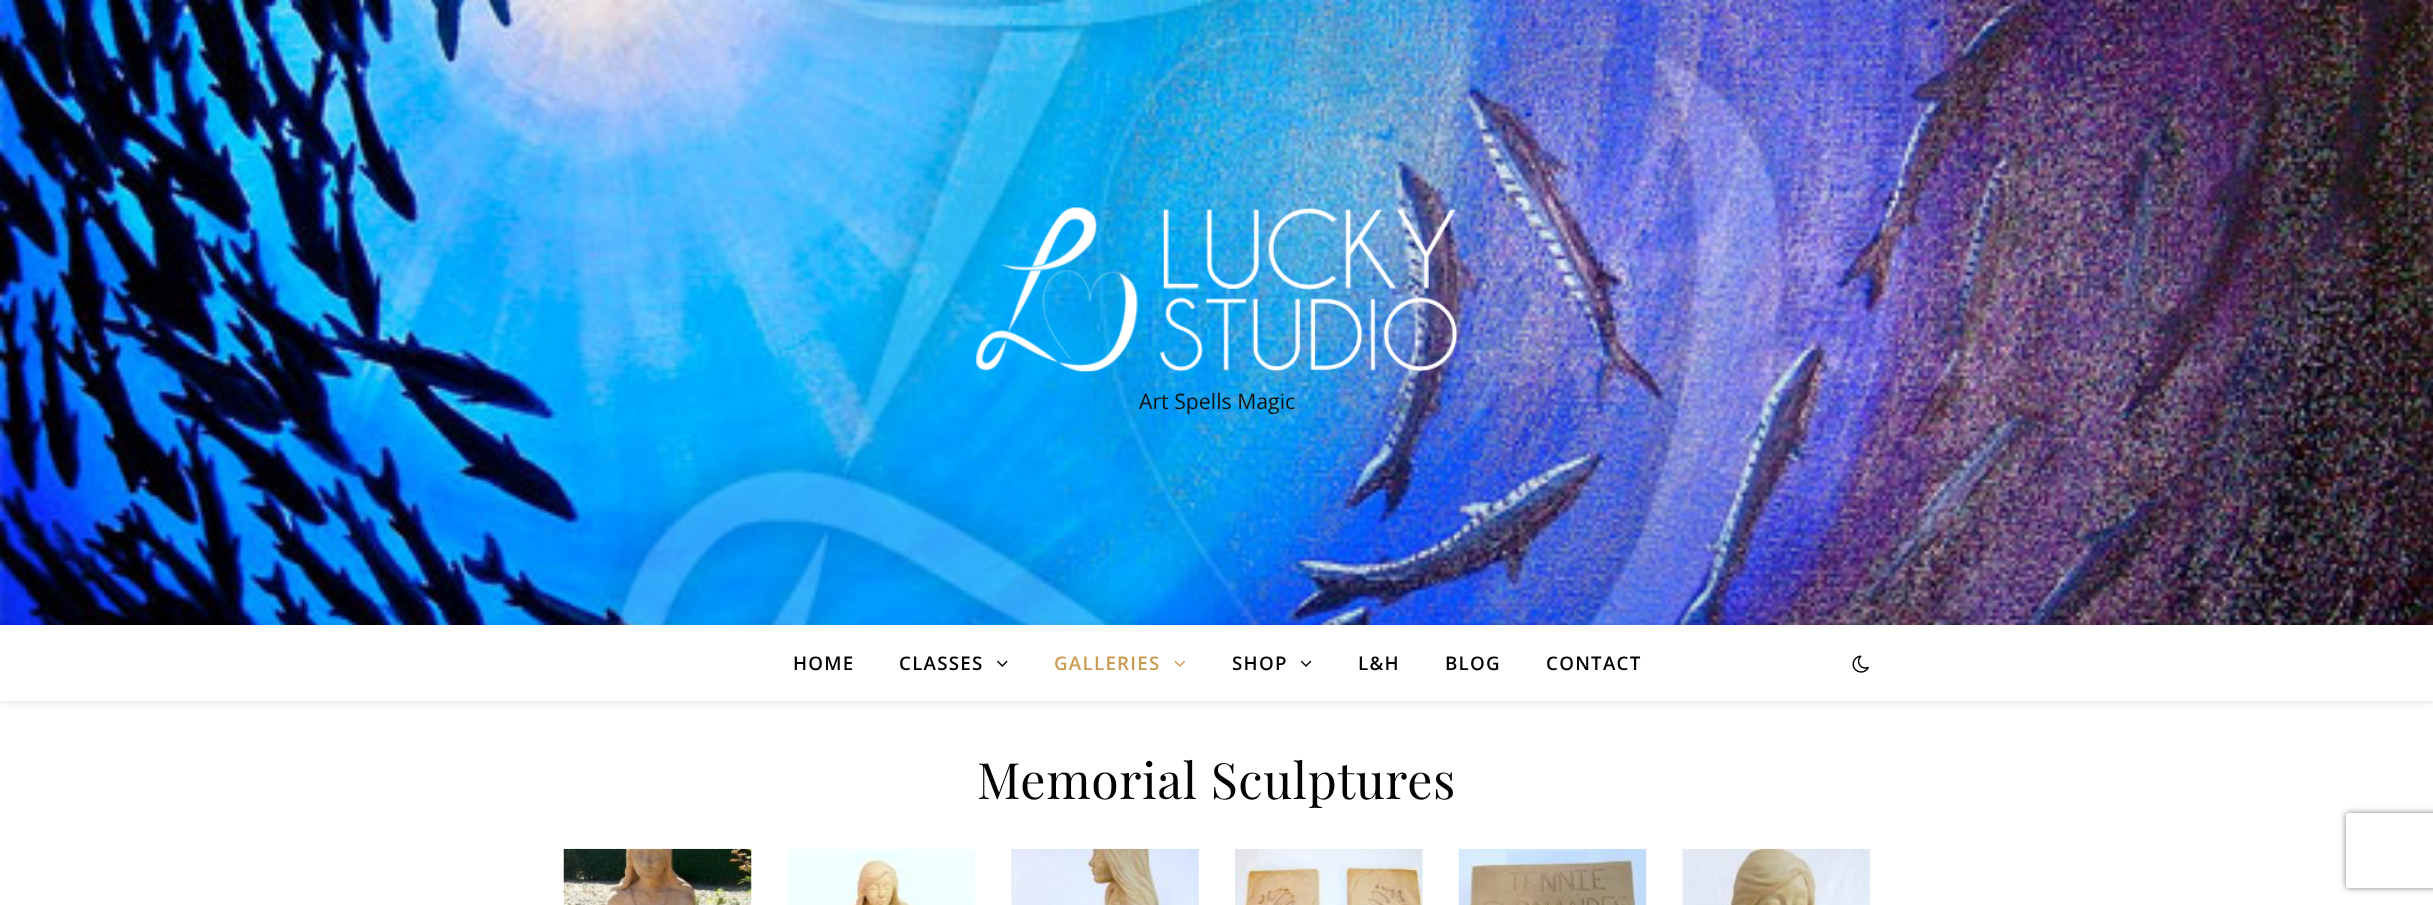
<?xml version="1.0" encoding="UTF-8"?>
<svg xmlns="http://www.w3.org/2000/svg" width="2433" height="905">
    <defs>
        <clipPath id="clip1"><path d="M 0 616 H 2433 V 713 H 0 Z M 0 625 H 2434 V 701 H 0 Z" clip-rule="evenodd"/></clipPath>
        <filter id="blur1" x="-50%" y="-200%" width="200%" height="500%"><feGaussianBlur stdDeviation="3"/></filter>
        <clipPath id="clip2"><path d="M 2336 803 H 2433 V 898 H 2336 Z M 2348.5 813 H 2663.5 C 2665 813 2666 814 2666 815.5 V 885.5 C 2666 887 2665 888 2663.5 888 H 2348.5 C 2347 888 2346 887 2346 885.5 V 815.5 C 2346 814 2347 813 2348.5 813 Z" clip-rule="evenodd"/></clipPath>
    </defs>
    <rect width="100%" height="100%" fill="#FFFFFF"/>
    <image x="0" y="0" width="2433" height="625" href="img_01.png"/>
    <image x="976" y="207" width="482" height="165" href="img_02.png"/>
    <text x="1139" y="409" font-family="Open Sans" font-size="21.25" fill="#111111">Art Spells Magic</text>
    <g clip-path="url(#clip1)">
        <rect x="0" y="626" width="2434" height="77" fill="#000000" fill-opacity="0.1" filter="url(#blur1)"/>
    </g>
    <text x="793" y="670" font-family="Open Sans" font-size="18.75" font-weight="600" letter-spacing="1.25" fill="#030303">HOME</text>
    <text x="899" y="670" font-family="Open Sans" font-size="18.75" font-weight="600" letter-spacing="1.25" fill="#030303">CLASSES</text>
    <image x="997" y="660" width="11" height="7" href="img_03.png"/>
    <text x="1054" y="670" font-family="Open Sans" font-size="18.75" font-weight="600" letter-spacing="1.25" fill="#CA9B52">GALLERIES</text>
    <image x="1174" y="660" width="11" height="7" href="img_04.png"/>
    <text x="1232" y="670" font-family="Open Sans" font-size="18.75" font-weight="600" letter-spacing="1.25" fill="#030303">SHOP</text>
    <image x="1300" y="660" width="12" height="7" href="img_05.png"/>
    <text x="1358" y="670" font-family="Open Sans" font-size="18.75" font-weight="600" letter-spacing="1.25" fill="#030303">L&amp;H</text>
    <text x="1445" y="670" font-family="Open Sans" font-size="18.75" font-weight="600" letter-spacing="1.25" fill="#030303">BLOG</text>
    <text x="1546" y="670" font-family="Open Sans" font-size="18.75" font-weight="600" letter-spacing="1.25" fill="#030303">CONTACT</text>
    <image x="1852" y="655" width="17" height="18" href="img_06.png"/>
    <text x="977" y="799" font-family="Playfair Display" font-size="50" letter-spacing="0.6" fill="#030303">Memorial Sculptures</text>
    <image x="563" y="848" width="189" height="57" href="img_07.png"/>
    <image x="787" y="849" width="188" height="56" href="img_08.png"/>
    <image x="1011" y="848" width="188" height="57" href="img_09.png"/>
    <image x="1235" y="849" width="188" height="56" href="img_10.png"/>
    <image x="1458" y="848" width="189" height="57" href="img_11.png"/>
    <image x="1682" y="848" width="188" height="57" href="img_12.png"/>
    <g clip-path="url(#clip2)">
        <rect x="2346" y="813" width="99" height="75" rx="2.5" fill="#808080" filter="url(#blur1)"/>
    </g>
</svg>
